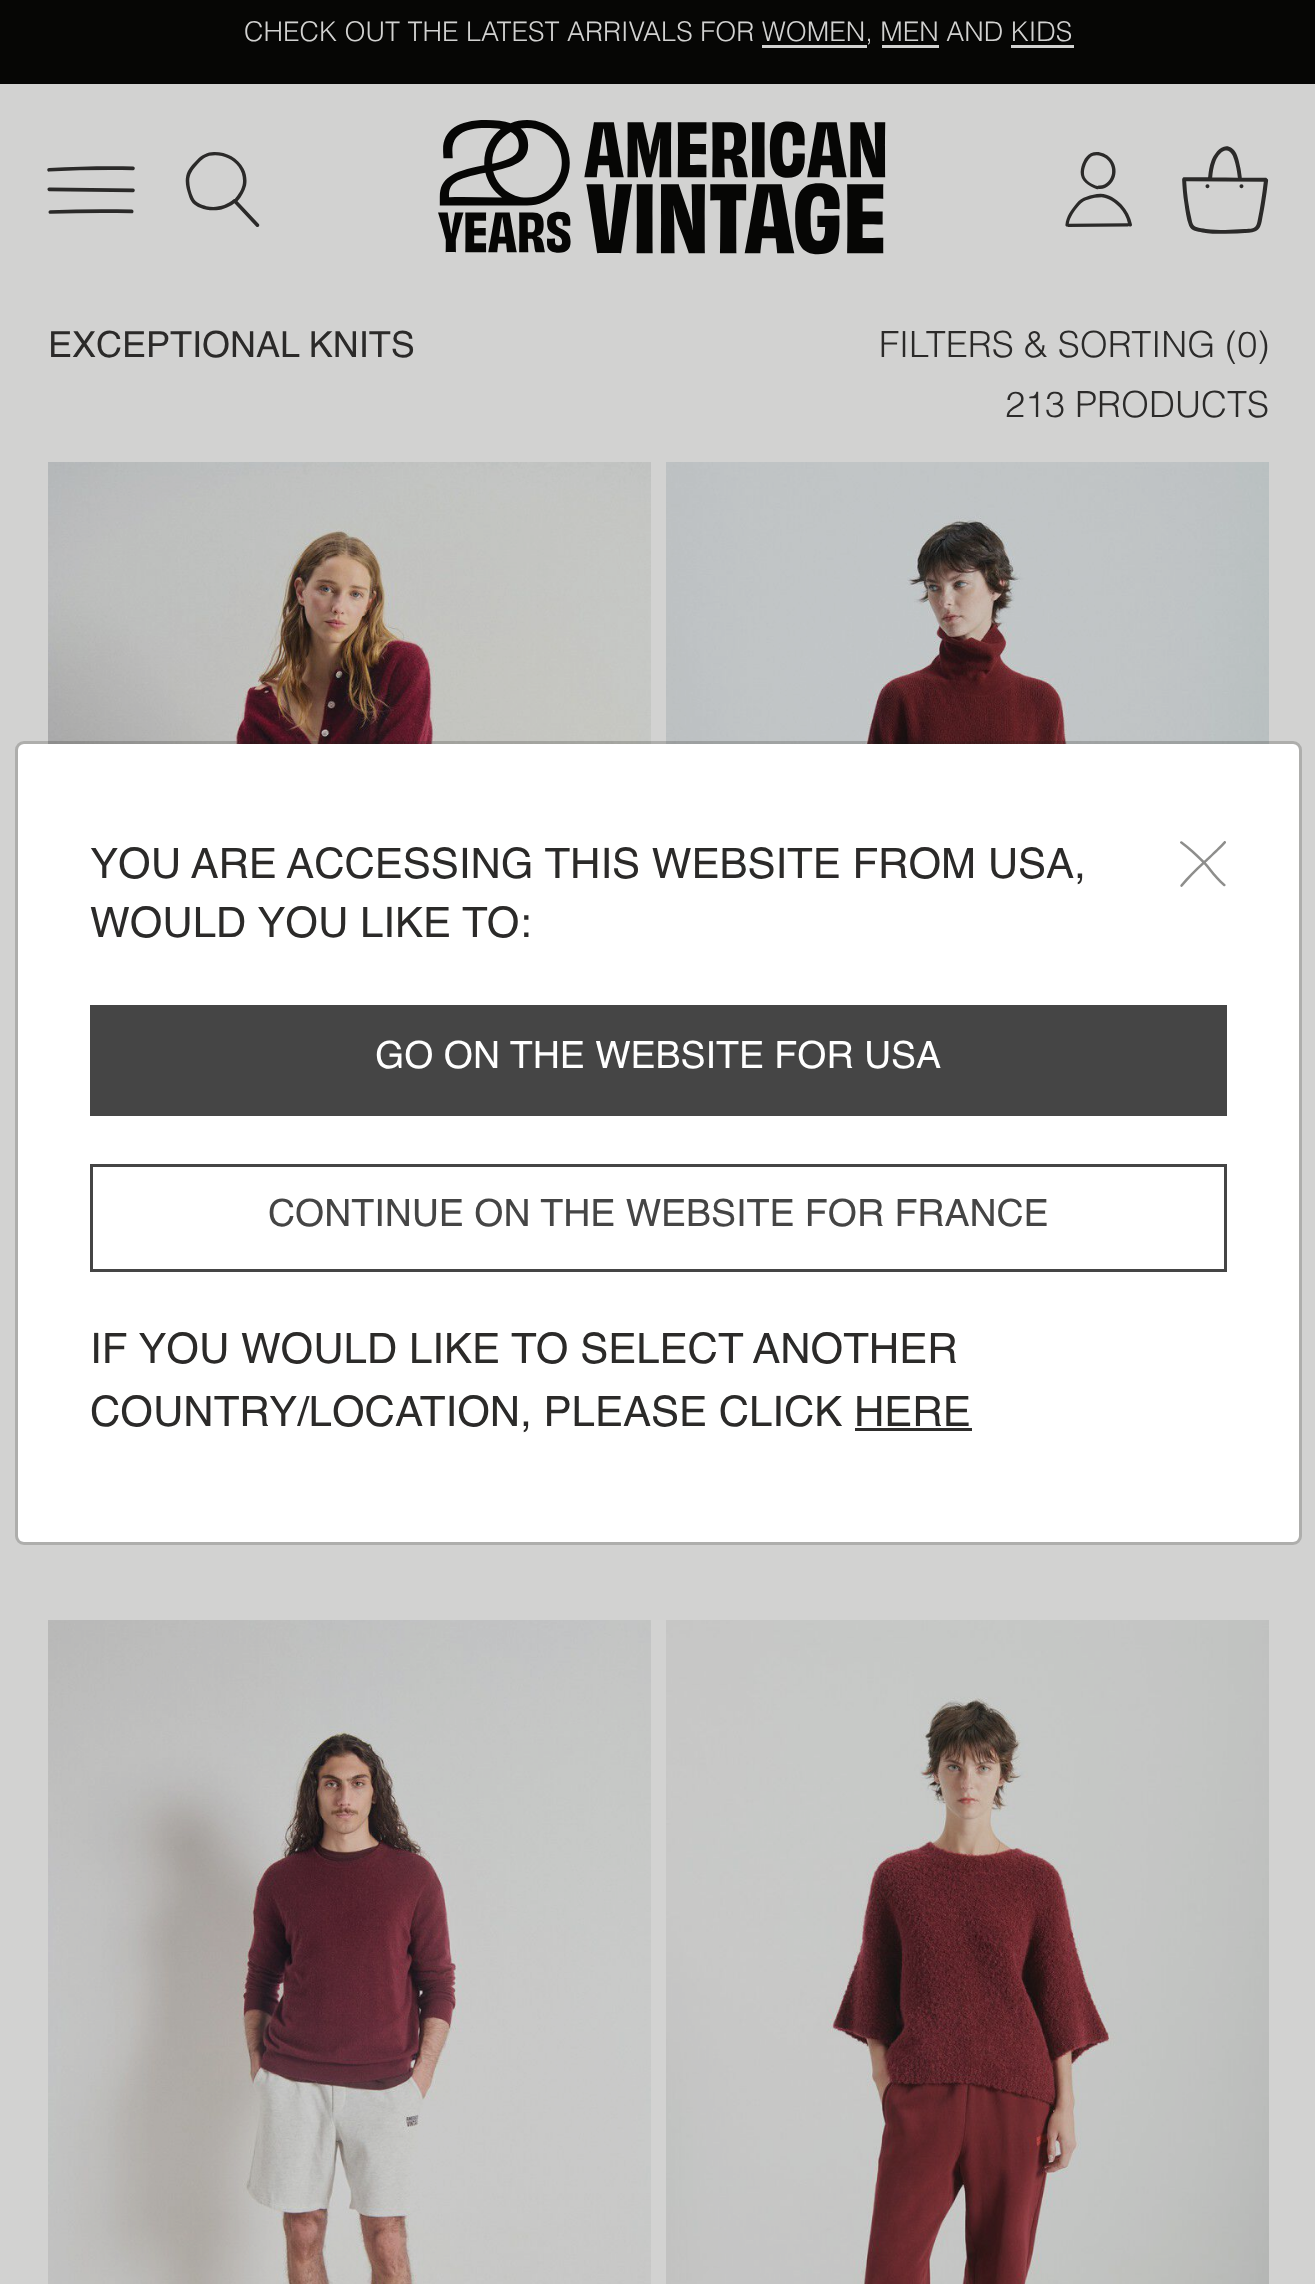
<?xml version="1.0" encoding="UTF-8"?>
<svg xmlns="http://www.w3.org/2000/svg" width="1315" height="2284">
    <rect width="100%" height="100%" fill="#D2D2D1"/>
    <rect x="0" y="0" width="1315" height="84" fill="#060605"/>
    <text x="244" y="41" font-family="Helvetica" font-size="27" font-weight="300" fill="#D2D2D1">CHECK OUT THE LATEST ARRIVALS FOR WOMEN, MEN AND KIDS</text>
    <rect x="762" y="45" width="105" height="3" fill="#D2D2D1"/>
    <rect x="882" y="45" width="57" height="3" fill="#D2D2D1"/>
    <rect x="1011" y="45" width="63" height="3" fill="#D2D2D1"/>
    <image x="47" y="166" width="88" height="48" href="img_01.png"/>
    <image x="185" y="152" width="75" height="75" href="img_02.png"/>
    <image x="438" y="120" width="448" height="135" href="img_03.png"/>
    <image x="1065" y="152" width="67" height="75" href="img_04.png"/>
    <image x="1182" y="146" width="87" height="88" href="img_05.png"/>
    <text x="48" y="357" font-family="Helvetica" font-size="36" fill="#2B2A29">EXCEPTIONAL KNITS</text>
    <text x="879" y="357" font-family="Helvetica" font-size="36" font-weight="300" fill="#2B2A29">FILTERS &amp; SORTING (0)</text>
    <text x="1005" y="417" font-family="Helvetica" font-size="36" font-weight="300" fill="#2B2A29">213 PRODUCTS</text>
    <image x="48" y="462" width="603" height="282" href="img_06.png"/>
    <image x="666" y="462" width="603" height="282" href="img_07.png"/>
    <image x="48" y="1620" width="603" height="664" href="img_08.png"/>
    <image x="666" y="1620" width="603" height="664" href="img_09.png"/>
    <rect x="18" y="744" width="1281" height="798" rx="6" fill="#FFFFFF"/>
    <rect x="16.5" y="742.5" width="1284" height="801" rx="7.5" fill="none" stroke="#1F1F1B" stroke-opacity="0.2" stroke-width="3"/>
    <text font-family="Helvetica" font-size="42" fill="#2B2A29">
        <tspan x="90" y="878">YOU ARE ACCESSING THIS WEBSITE FROM USA,</tspan>
        <tspan x="90" y="937">WOULD YOU LIKE TO:</tspan>
    </text>
    <image x="1180" y="841" width="46" height="46" href="img_10.png"/>
    <rect x="90" y="1005" width="1137" height="111" fill="#454545"/>
    <text x="375" y="1068" font-family="Helvetica" font-size="37.5" fill="#FFFFFF">GO ON THE WEBSITE FOR USA</text>
    <rect x="91.5" y="1165.5" width="1134" height="105" fill="none" stroke="#454545" stroke-width="3"/>
    <text x="268" y="1226" font-family="Helvetica" font-size="37.5" fill="#454545">CONTINUE ON THE WEBSITE FOR FRANCE</text>
    <text font-family="Helvetica" font-size="42" fill="#2B2A29">
        <tspan x="90" y="1363">IF YOU WOULD LIKE TO SELECT ANOTHER</tspan>
        <tspan x="90" y="1426">COUNTRY/LOCATION, PLEASE CLICK HERE</tspan>
    </text>
    <rect x="855" y="1428" width="117" height="3" fill="#2E2D2C"/>
</svg>
